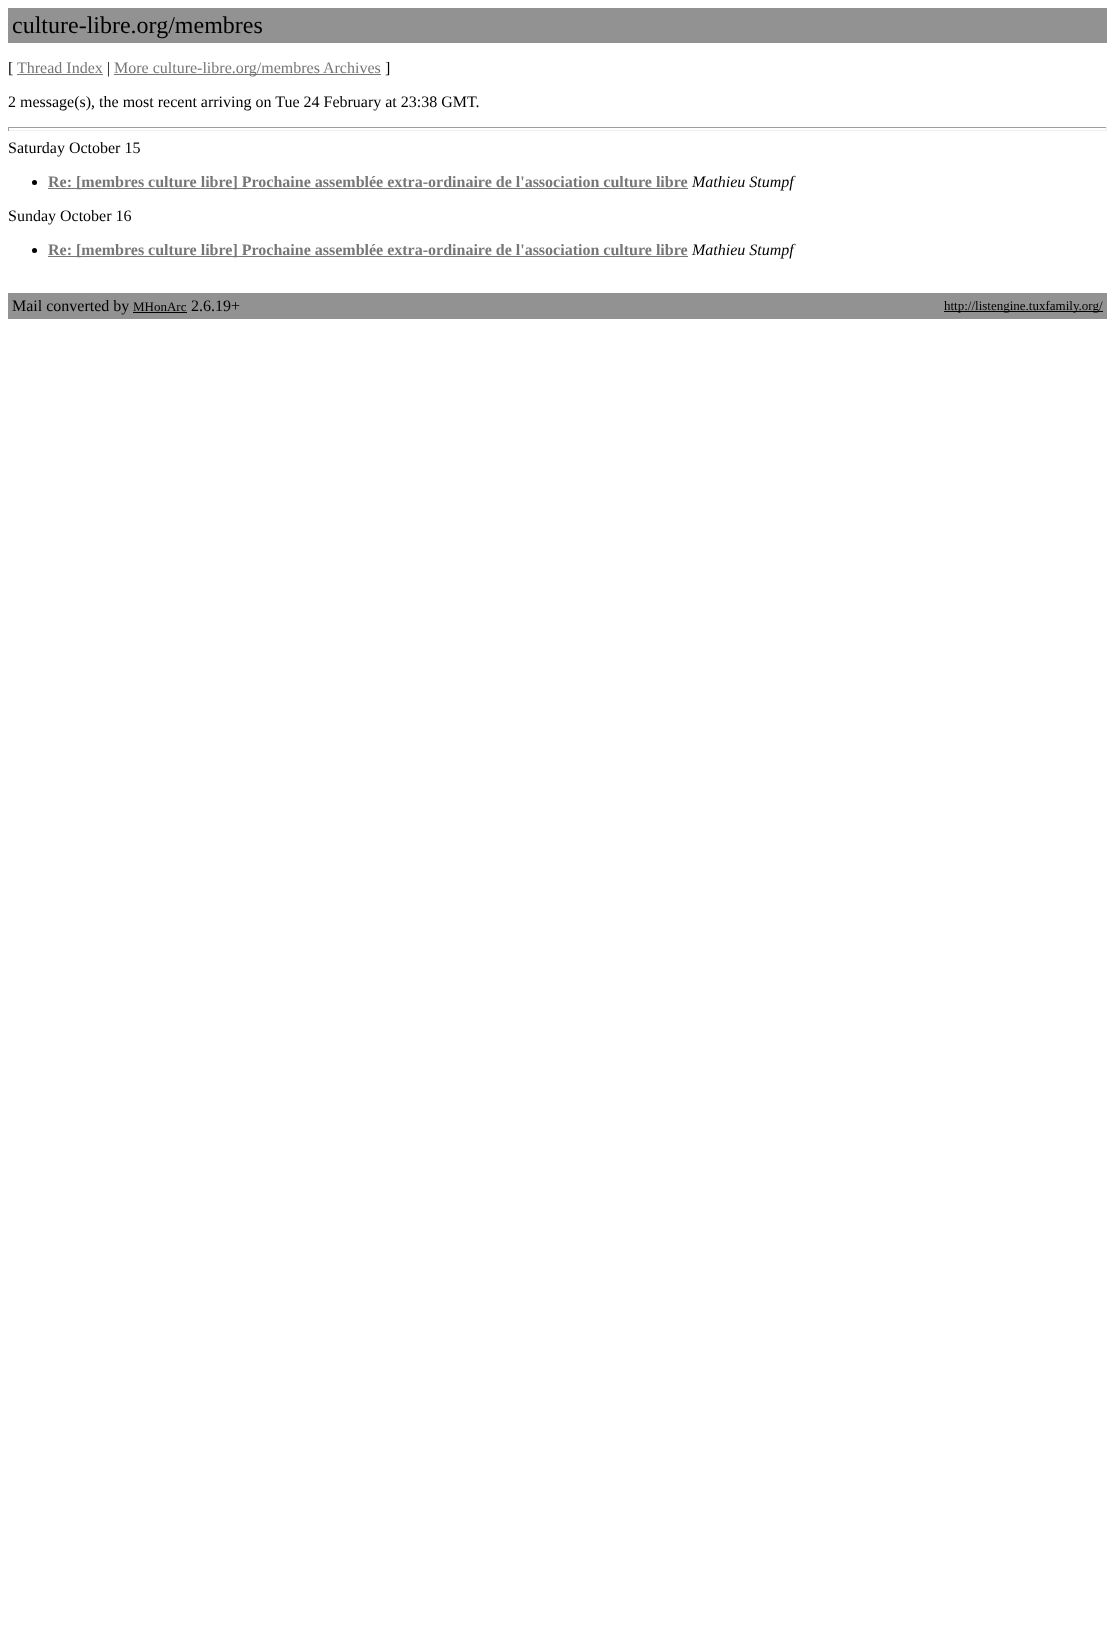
<?xml version="1.0" encoding="UTF-8"?>
<svg xmlns="http://www.w3.org/2000/svg" width="1115" height="1635">
    <rect width="100%" height="100%" fill="#FFFFFF"/>
    <rect x="8" y="8" width="1099" height="35" fill="#929292"/>
    <text x="12" y="33" font-family="Liberation Serif" font-size="24" fill="#000000">culture-libre.org/membres</text>
    <text x="8" y="73" font-family="Liberation Serif" font-size="16" fill="#000000">[</text>
    <text x="17" y="73" font-family="Liberation Serif" font-size="16" fill="#777777">Thread Index</text>
    <rect x="17" y="74" width="86" height="1" fill="#777777"/>
    <text x="107" y="73" font-family="Liberation Serif" font-size="16" fill="#000000">|</text>
    <rect x="114" y="74" width="267" height="1" fill="#777777"/>
    <text x="114" y="73" font-family="Liberation Serif" font-size="16" fill="#777777">More culture-libre.org/membres Archives</text>
    <text x="385" y="73" font-family="Liberation Serif" font-size="16" fill="#000000">]</text>
    <text x="8" y="107" font-family="Liberation Serif" font-size="16" fill="#000000">2 message(s), the most recent arriving on Tue 24 February at 23:38 GMT.</text>
    <rect x="8" y="127" width="1099" height="1" fill="#9F9F9F"/>
    <rect x="1106" y="127" width="1" height="4" fill="#EEEEEE"/>
    <rect x="8" y="130" width="1099" height="1" fill="#EEEEEE"/>
    <rect x="8" y="127" width="1" height="4" fill="#9F9F9F"/>
    <text x="8" y="153" font-family="Liberation Serif" font-size="16" fill="#000000">Saturday October 15</text>
    <circle cx="34.5" cy="182.5" r="2.5" fill="#000000"/>
    <rect x="48" y="188" width="640" height="1" fill="#777777"/>
    <text x="48" y="187" font-family="Liberation Serif" font-size="16" font-weight="700" fill="#777777">Re: [membres culture libre] Prochaine assemblée extra-ordinaire de l'association culture libre</text>
    <text x="692" y="187" font-family="Liberation Serif" font-size="16" font-style="italic" fill="#000000">Mathieu Stumpf</text>
    <text x="8" y="221" font-family="Liberation Serif" font-size="16" fill="#000000">Sunday October 16</text>
    <circle cx="34.5" cy="250.5" r="2.5" fill="#000000"/>
    <rect x="48" y="256" width="640" height="1" fill="#777777"/>
    <text x="48" y="255" font-family="Liberation Serif" font-size="16" font-weight="700" fill="#777777">Re: [membres culture libre] Prochaine assemblée extra-ordinaire de l'association culture libre</text>
    <text x="692" y="255" font-family="Liberation Serif" font-size="16" font-style="italic" fill="#000000">Mathieu Stumpf</text>
    <rect x="8" y="293" width="1099" height="26" fill="#929292"/>
    <text x="12" y="311" font-family="Liberation Serif" font-size="16" fill="#000000">Mail converted by</text>
    <text x="133" y="311" font-family="Liberation Serif" font-size="13" fill="#000000">MHonArc</text>
    <rect x="133" y="312" width="54" height="1" fill="#000000"/>
    <text x="191" y="311" font-family="Liberation Serif" font-size="16" fill="#000000">2.6.19+</text>
    <rect x="944" y="311" width="159" height="1" fill="#000000"/>
    <text x="944" y="310" font-family="Liberation Serif" font-size="13" fill="#000000">http://listengine.tuxfamily.org/</text>
</svg>
